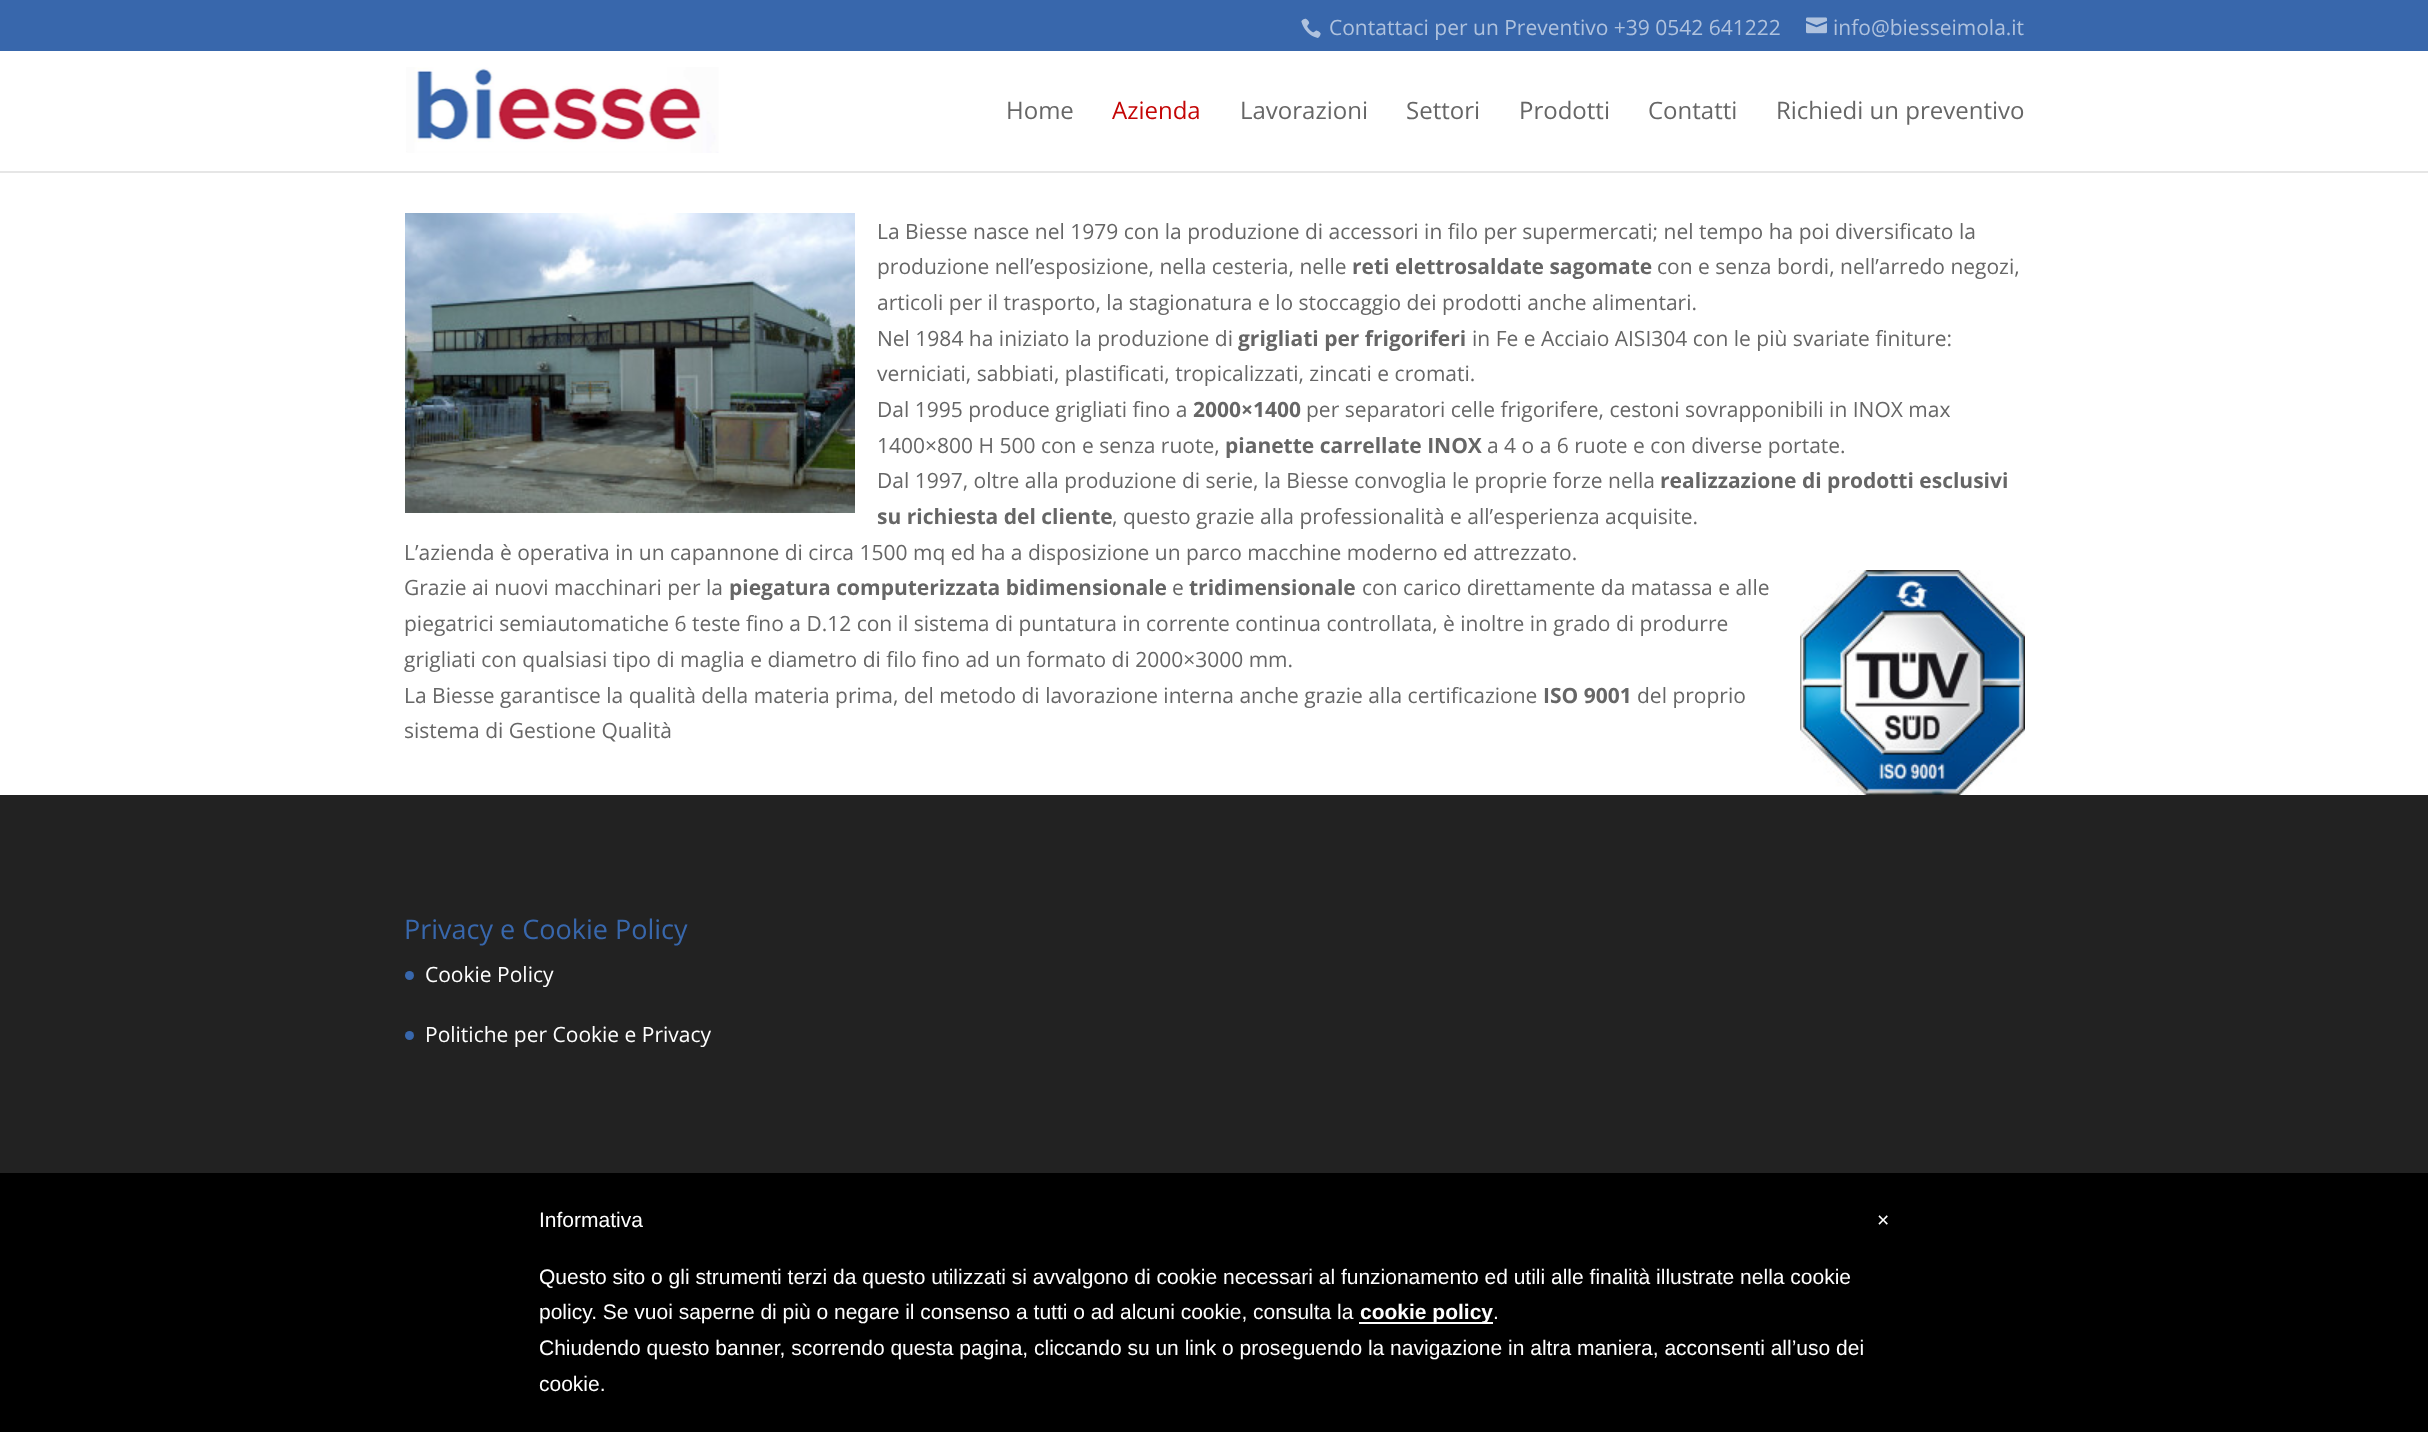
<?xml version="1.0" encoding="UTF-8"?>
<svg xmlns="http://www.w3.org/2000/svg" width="2428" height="1432">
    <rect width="100%" height="100%" fill="#FFFFFF"/>
    <rect x="0" y="0" width="2428" height="51" fill="#3867AC"/>
    <image x="1301" y="18" width="20" height="20" href="img_01.png"/>
    <text x="1329" y="35" font-family="Open Sans" font-size="21" fill="#AFC2DE">Contattaci per un Preventivo +39 0542 641222</text>
    <image x="1806" y="17" width="21" height="17" href="img_02.png"/>
    <text x="1833" y="35" font-family="Open Sans" font-size="21" fill="#AFC2DE">info@biesseimola.it</text>
    <path d="M 0 171 V 173 H 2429 V 53 H 2428 V 171 Z" fill="#E6E6E6"/>
    <image x="406" y="67" width="313" height="86" href="img_03.png"/>
    <text x="1006" y="119" font-family="Open Sans" font-size="24" fill="#666666">Home</text>
    <text x="1112" y="119" font-family="Open Sans" font-size="24" fill="#C40505">Azienda</text>
    <text x="1240" y="119" font-family="Open Sans" font-size="24" fill="#666666">Lavorazioni</text>
    <text x="1406" y="119" font-family="Open Sans" font-size="24" fill="#666666">Settori</text>
    <text x="1519" y="119" font-family="Open Sans" font-size="24" fill="#666666">Prodotti</text>
    <text x="1648" y="119" font-family="Open Sans" font-size="24" fill="#666666">Contatti</text>
    <text x="1776" y="119" font-family="Open Sans" font-size="24" fill="#666666">Richiedi un preventivo</text>
    <image x="405" y="213" width="450" height="300" href="img_04.png"/>
    <text font-family="Open Sans" font-size="21" fill="#666666">
        <tspan x="877" y="239">La Biesse nasce nel 1979 con la produzione di accessori in filo per supermercati; nel tempo ha poi diversificato la</tspan>
        <tspan x="877" y="274">produzione nell’esposizione, nella cesteria, nelle</tspan>
    </text>
    <text x="1352" y="274" font-family="Open Sans" font-size="21" font-weight="700" fill="#666666">reti elettrosaldate sagomate</text>
    <text x="1657" y="274" font-family="Open Sans" font-size="21" fill="#666666">con e senza bordi, nell’arredo negozi,</text>
    <text font-family="Open Sans" font-size="21" fill="#666666">
        <tspan x="877" y="310">articoli per il trasporto, la stagionatura e lo stoccaggio dei prodotti anche alimentari.</tspan>
        <tspan x="877" y="346">Nel 1984 ha iniziato la produzione di</tspan>
    </text>
    <text x="1238" y="346" font-family="Open Sans" font-size="21" font-weight="700" fill="#666666">grigliati per frigoriferi</text>
    <text x="1472" y="346" font-family="Open Sans" font-size="21" fill="#666666">in Fe e Acciaio AISI304 con le più svariate finiture:</text>
    <text font-family="Open Sans" font-size="21" fill="#666666">
        <tspan x="877" y="381">verniciati, sabbiati, plastificati, tropicalizzati, zincati e cromati.</tspan>
        <tspan x="877" y="417">Dal 1995 produce grigliati fino a</tspan>
    </text>
    <text x="1193" y="417" font-family="Open Sans" font-size="21" font-weight="700" fill="#666666">2000×1400</text>
    <text x="1306" y="417" font-family="Open Sans" font-size="21" fill="#666666">per separatori celle frigorifere, cestoni sovrapponibili in INOX max</text>
    <text x="877" y="453" font-family="Open Sans" font-size="21" fill="#666666">1400×800 H 500 con e senza ruote,</text>
    <text x="1225" y="453" font-family="Open Sans" font-size="21" font-weight="700" fill="#666666">pianette carrellate INOX</text>
    <text x="1487" y="453" font-family="Open Sans" font-size="21" fill="#666666">a 4 o a 6 ruote e con diverse portate.</text>
    <text x="877" y="488" font-family="Open Sans" font-size="21" fill="#666666">Dal 1997, oltre alla produzione di serie, la Biesse convoglia le proprie forze nella</text>
    <text x="1660" y="488" font-family="Open Sans" font-size="21" font-weight="700" fill="#666666">realizzazione di prodotti esclusivi</text>
    <text x="877" y="524" font-family="Open Sans" font-size="21" font-weight="700" fill="#666666">su richiesta del cliente</text>
    <text x="1112" y="524" font-family="Open Sans" font-size="21" fill="#666666">, questo grazie alla professionalità e all’esperienza acquisite.</text>
    <text font-family="Open Sans" font-size="21" fill="#666666">
        <tspan x="404" y="560">L’azienda è operativa in un capannone di circa 1500 mq ed ha a disposizione un parco macchine moderno ed attrezzato.</tspan>
        <tspan x="404" y="595">Grazie ai nuovi macchinari per la</tspan>
    </text>
    <text x="729" y="595" font-family="Open Sans" font-size="21" font-weight="700" fill="#666666">piegatura computerizzata bidimensionale</text>
    <text x="1172" y="595" font-family="Open Sans" font-size="21" fill="#666666">e</text>
    <text x="1189" y="595" font-family="Open Sans" font-size="21" font-weight="700" fill="#666666">tridimensionale</text>
    <text x="1362" y="595" font-family="Open Sans" font-size="21" fill="#666666">con carico direttamente da matassa e alle</text>
    <image x="1800" y="570" width="225" height="225" href="img_05.png"/>
    <text font-family="Open Sans" font-size="21" fill="#666666">
        <tspan x="404" y="631">piegatrici semiautomatiche 6 teste fino a D.12 con il sistema di puntatura in corrente continua controllata, è inoltre in grado di produrre</tspan>
        <tspan x="404" y="667">grigliati con qualsiasi tipo di maglia e diametro di filo fino ad un formato di 2000×3000 mm.</tspan>
        <tspan x="404" y="703">La Biesse garantisce la qualità della materia prima, del metodo di lavorazione interna anche grazie alla certificazione</tspan>
    </text>
    <text x="1543" y="703" font-family="Open Sans" font-size="21" font-weight="700" fill="#666666">ISO 9001</text>
    <text x="1637" y="703" font-family="Open Sans" font-size="21" fill="#666666">del proprio</text>
    <text x="404" y="738" font-family="Open Sans" font-size="21" fill="#666666">sistema di Gestione Qualità</text>
    <rect x="0" y="795" width="2428" height="378" fill="#222222"/>
    <text x="404" y="939" font-family="Open Sans" font-size="27" fill="#3867AC">Privacy e Cookie Policy</text>
    <circle cx="409.5" cy="975.5" r="4.5" fill="#3867AC"/>
    <text x="425" y="982" font-family="Open Sans" font-size="21" fill="#FFFFFF">Cookie Policy</text>
    <circle cx="409.5" cy="1035.5" r="4.5" fill="#3867AC"/>
    <text x="425" y="1042" font-family="Open Sans" font-size="21" fill="#FFFFFF">Politiche per Cookie e Privacy</text>
    <rect x="0" y="1173" width="2428" height="259" fill="#000000"/>
    <text x="539" y="1227" font-family="Liberation Sans" font-size="21" fill="#FFFFFF">Informativa</text>
    <text font-family="Liberation Sans" font-size="21" fill="#FFFFFF">
        <tspan x="539" y="1284">Questo sito o gli strumenti terzi da questo utilizzati si avvalgono di cookie necessari al funzionamento ed utili alle finalità illustrate nella cookie</tspan>
        <tspan x="539" y="1319">policy. Se vuoi saperne di più o negare il consenso a tutti o ad alcuni cookie, consulta la</tspan>
    </text>
    <rect x="1359" y="1322" width="134" height="2" fill="#FFFFFF"/>
    <text x="1360" y="1319" font-family="Liberation Sans" font-size="21" font-weight="700" fill="#FFFFFF">cookie policy</text>
    <text x="1493" y="1319" font-family="Liberation Sans" font-size="21" fill="#FFFFFF">.</text>
    <text font-family="Liberation Sans" font-size="21" fill="#FFFFFF">
        <tspan x="539" y="1355">Chiudendo questo banner, scorrendo questa pagina, cliccando su un link o proseguendo la navigazione in altra maniera, acconsenti all’uso dei</tspan>
        <tspan x="539" y="1391">cookie.</tspan>
    </text>
    <text x="1877" y="1227" font-family="Liberation Sans" font-size="21" fill="#FFFFFF">×</text>
</svg>
